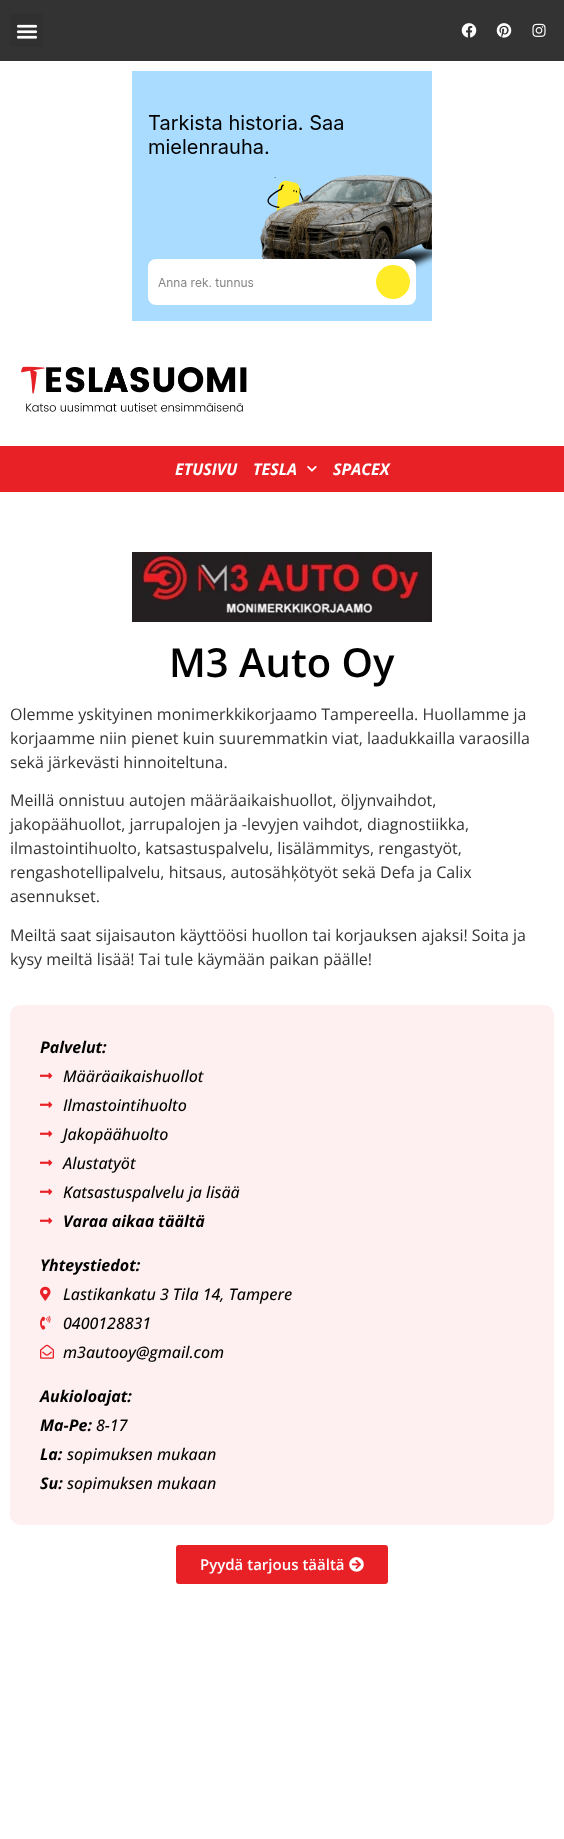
<?xml version="1.0" encoding="UTF-8"?>
<svg xmlns="http://www.w3.org/2000/svg" width="564" height="1839">
    <rect width="100%" height="100%" fill="#FFFFFF"/>
    <rect x="0" y="0" width="564" height="61" fill="#333333"/>
    <rect x="10" y="14" width="33" height="33" rx="3" fill="#303030"/>
    <image x="16" y="24" width="22" height="15" href="img_01.png"/>
    <image x="461" y="23" width="16" height="15" href="img_02.png"/>
    <image x="496" y="23" width="16" height="15" href="img_03.png"/>
    <image x="532" y="23" width="14" height="14" href="img_04.png"/>
    <image x="132" y="71" width="300" height="250" href="img_05.png"/>
    <image x="21" y="366" width="226" height="46" href="img_06.png"/>
    <rect x="0" y="446" width="564" height="46" fill="#E82127"/>
    <text x="175" y="475" font-family="Open Sans" font-size="16" font-weight="700" font-style="italic" fill="#FFFFFF">ETUSIVU</text>
    <text x="253" y="475" font-family="Open Sans" font-size="16" font-weight="700" font-style="italic" fill="#FFFFFF">TESLA</text>
    <image x="307" y="466" width="10" height="6" href="img_07.png"/>
    <text x="333" y="475" font-family="Open Sans" font-size="16" font-weight="700" font-style="italic" fill="#FFFFFF">SPACEX</text>
    <image x="132" y="552" width="300" height="70" href="img_08.png"/>
    <text x="169" y="677" font-family="Open Sans" font-size="40" font-weight="600" fill="#000000">M3 Auto Oy</text>
    <text font-family="Open Sans" font-size="16" fill="#333333">
        <tspan x="10" y="720">Olemme yskityinen monimerkkikorjaamo Tampereella. Huollamme ja</tspan>
        <tspan x="10" y="744">korjaamme niin pienet kuin suuremmatkin viat, laadukkailla varaosilla</tspan>
        <tspan x="10" y="768">sekä järkevästi hinnoiteltuna.</tspan>
    </text>
    <text font-family="Open Sans" font-size="16" fill="#333333">
        <tspan x="10" y="806">Meillä onnistuu autojen määräaikaishuollot, öljynvaihdot,</tspan>
        <tspan x="10" y="830">jakopäähuollot, jarrupalojen ja -levyjen vaihdot, diagnostiikka,</tspan>
        <tspan x="10" y="854">ilmastointihuolto, katsastuspalvelu, lisälämmitys, rengastyöt,</tspan>
        <tspan x="10" y="878">rengashotellipalvelu, hitsaus, autosähķötyöt sekä Defa ja Calix</tspan>
        <tspan x="10" y="902">asennukset.</tspan>
    </text>
    <text font-family="Open Sans" font-size="16" fill="#333333">
        <tspan x="10" y="941">Meiltä saat sijaisauton käyttöösi huollon tai korjauksen ajaksi! Soita ja</tspan>
        <tspan x="10" y="965">kysy meiltä lisää! Tai tule käymään paikan päälle!</tspan>
    </text>
    <rect x="10" y="1005" width="544" height="520" rx="10" fill="#FEF0F1"/>
    <text x="40" y="1053" font-family="Open Sans" font-size="16" font-weight="700" font-style="italic" fill="#000000">Palvelut:</text>
    <image x="40" y="1072" width="13" height="7" href="img_09.png"/>
    <text x="63" y="1082" font-family="Open Sans" font-size="16" font-weight="500" font-style="italic" fill="#000000">Määräaikaishuollot</text>
    <image x="40" y="1101" width="13" height="7" href="img_09.png"/>
    <text x="63" y="1111" font-family="Open Sans" font-size="16" font-weight="500" font-style="italic" fill="#000000">Ilmastointihuolto</text>
    <image x="40" y="1130" width="13" height="7" href="img_09.png"/>
    <text x="63" y="1140" font-family="Open Sans" font-size="16" font-weight="500" font-style="italic" fill="#000000">Jakopäähuolto</text>
    <image x="40" y="1159" width="13" height="7" href="img_09.png"/>
    <text x="63" y="1169" font-family="Open Sans" font-size="16" font-weight="500" font-style="italic" fill="#000000">Alustatyöt</text>
    <image x="40" y="1188" width="13" height="7" href="img_09.png"/>
    <text x="63" y="1198" font-family="Open Sans" font-size="16" font-weight="500" font-style="italic" fill="#000000">Katsastuspalvelu ja lisää</text>
    <image x="40" y="1217" width="13" height="7" href="img_09.png"/>
    <text x="63" y="1227" font-family="Open Sans" font-size="16" font-weight="700" font-style="italic" fill="#000000">Varaa aikaa täältä</text>
    <text x="40" y="1271" font-family="Open Sans" font-size="16" font-weight="700" font-style="italic" fill="#000000">Yhteystiedot:</text>
    <image x="40" y="1286" width="11" height="15" href="img_10.png"/>
    <text x="63" y="1300" font-family="Open Sans" font-size="16" font-weight="500" font-style="italic" fill="#000000">Lastikankatu 3 Tila 14, Tampere</text>
    <image x="40" y="1315" width="11" height="15" href="img_11.png"/>
    <text x="63" y="1329" font-family="Open Sans" font-size="16" font-weight="500" font-style="italic" fill="#000000">0400128831</text>
    <image x="40" y="1344" width="14" height="15" href="img_12.png"/>
    <text x="63" y="1358" font-family="Open Sans" font-size="16" font-weight="500" font-style="italic" fill="#000000">m3autooy@gmail.com</text>
    <text font-family="Open Sans" font-size="16" font-weight="700" font-style="italic" fill="#000000">
        <tspan x="40" y="1402">Aukioloajat:</tspan>
        <tspan x="40" y="1431">Ma-Pe:</tspan>
    </text>
    <text x="96" y="1431" font-family="Open Sans" font-size="16" font-weight="500" font-style="italic" fill="#000000">8-17</text>
    <text x="40" y="1460" font-family="Open Sans" font-size="16" font-weight="700" font-style="italic" fill="#000000">La:</text>
    <text x="67" y="1460" font-family="Open Sans" font-size="16" font-weight="500" font-style="italic" fill="#000000">sopimuksen mukaan</text>
    <text x="40" y="1489" font-family="Open Sans" font-size="16" font-weight="700" font-style="italic" fill="#000000">Su:</text>
    <text x="67" y="1489" font-family="Open Sans" font-size="16" font-weight="500" font-style="italic" fill="#000000">sopimuksen mukaan</text>
    <rect x="176" y="1545" width="212" height="39" rx="3" fill="#E82127"/>
    <text x="200" y="1570" font-family="Open Sans" font-size="15" font-weight="600" fill="#FFFFFF">Pyydä tarjous täältä</text>
    <image x="349" y="1557" width="15" height="15" href="img_13.png"/>
</svg>
